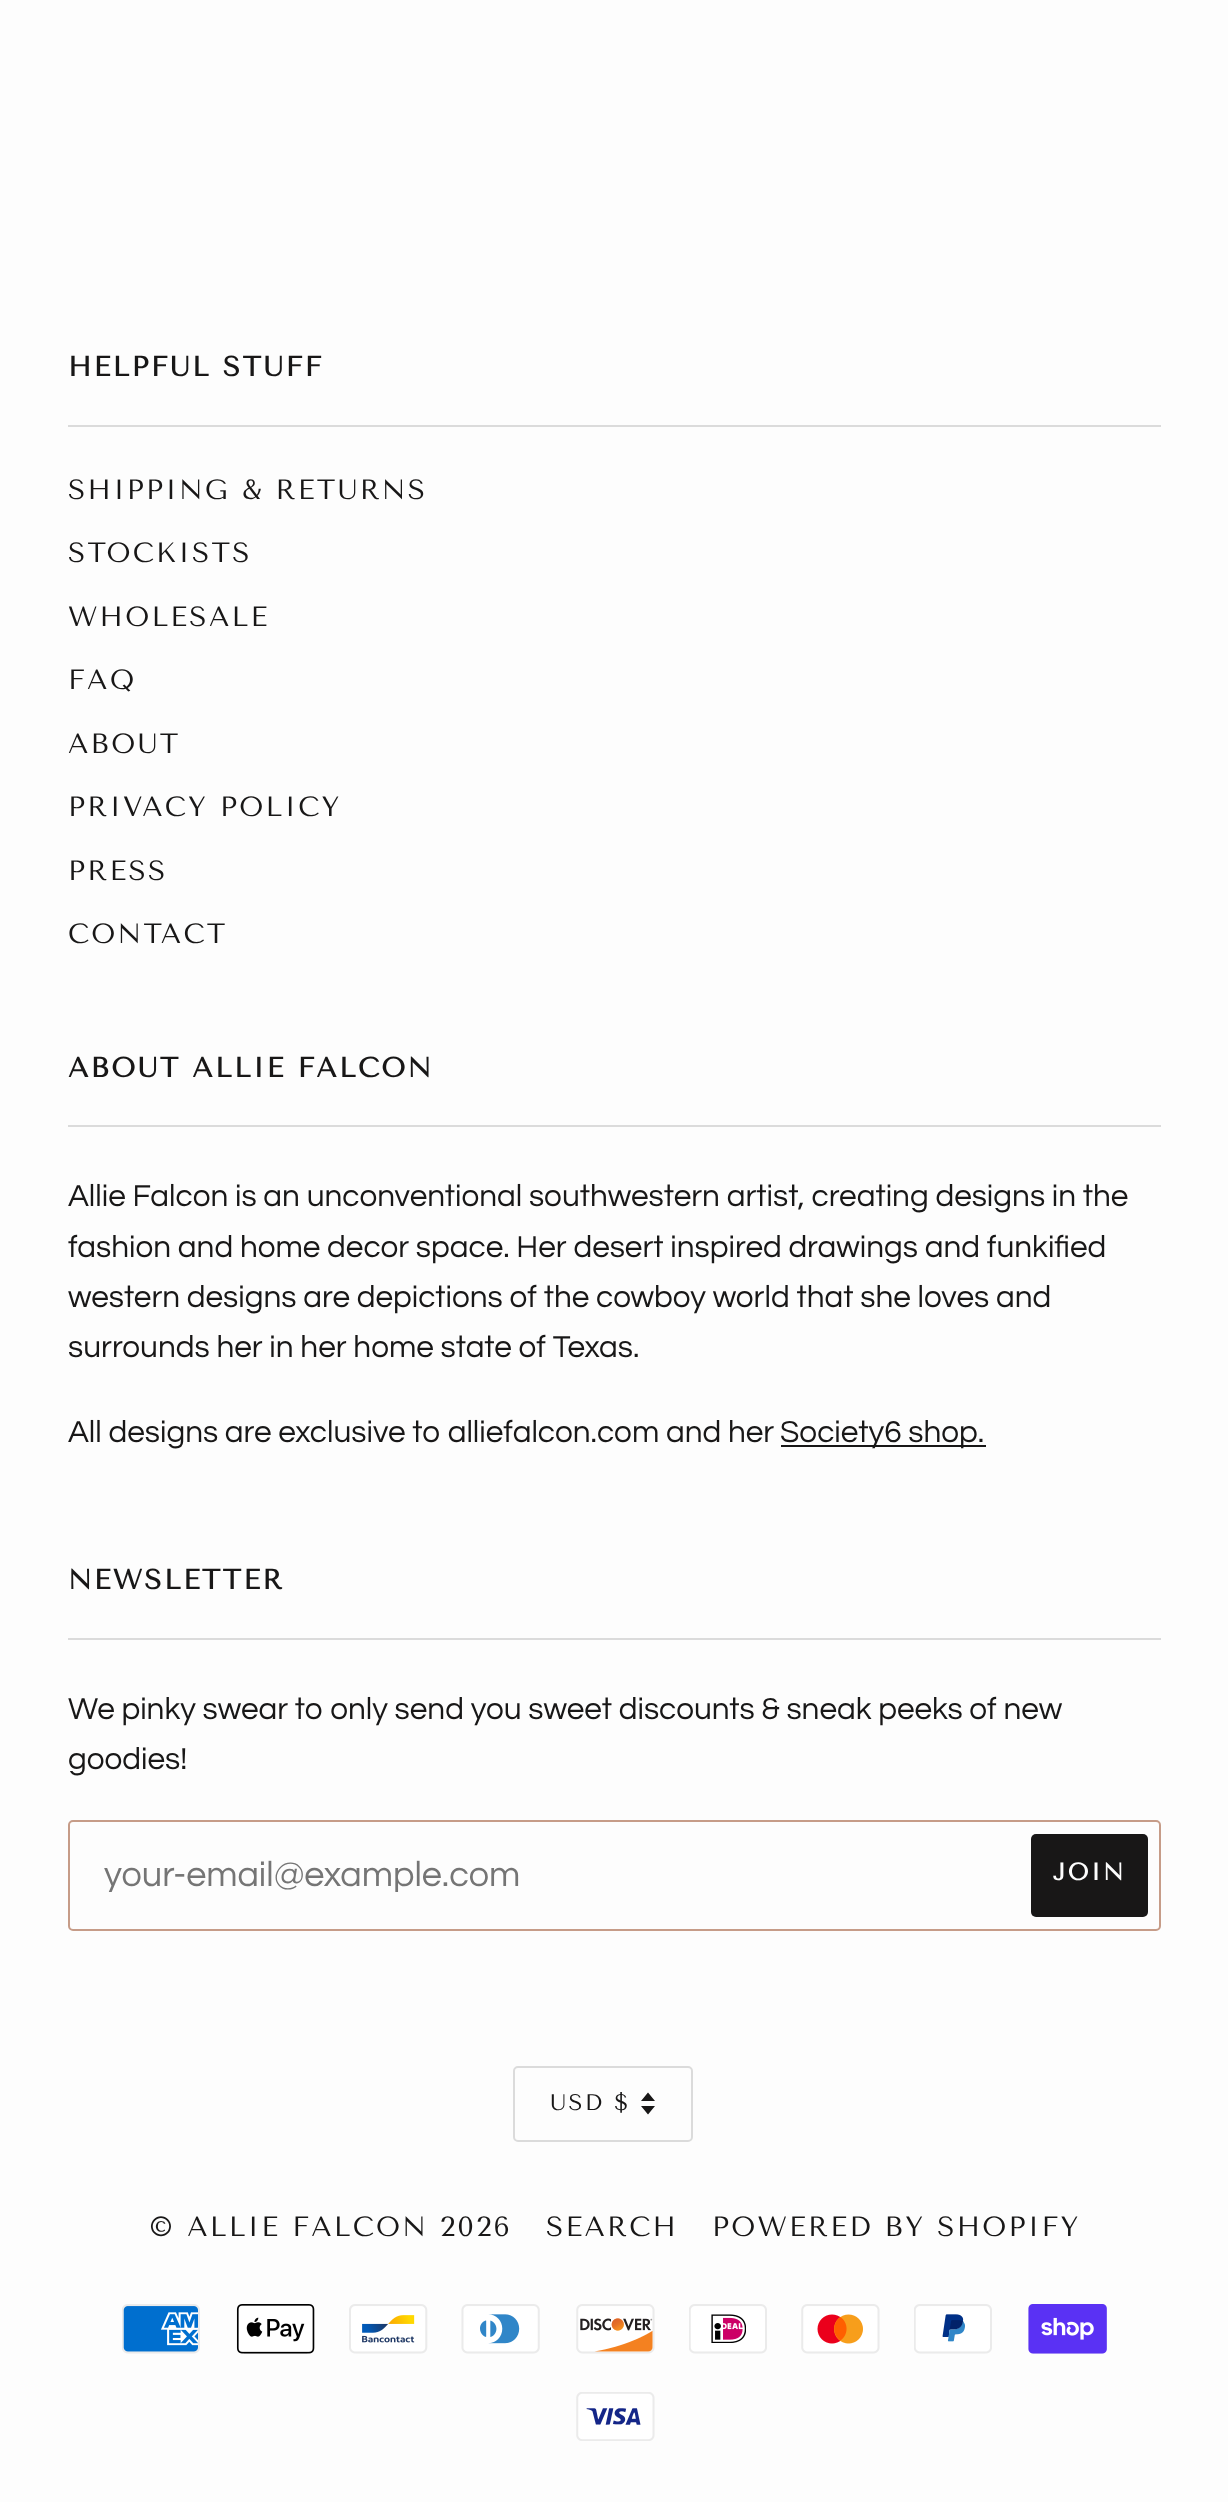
<?xml version="1.0" encoding="UTF-8"?>
<svg xmlns="http://www.w3.org/2000/svg" width="1228" height="2502">
    <defs>
        <clipPath id="clip1"><rect x="104" y="1856" width="904" height="36"/></clipPath>
    </defs>
    <rect width="100%" height="100%" fill="#FDFDFD"/>
    <text x="68" y="376" font-family="Tenor Sans" font-size="27.75" font-weight="700" letter-spacing="2.25" fill="#181717">HELPFUL STUFF</text>
    <rect x="68" y="425" width="1093" height="2" fill="#DBDBDB"/>
    <text x="68" y="499" font-family="Tenor Sans" font-size="27.75" letter-spacing="2.25" fill="#181717">SHIPPING &amp; RETURNS</text>
    <text x="68" y="562" font-family="Tenor Sans" font-size="27.75" letter-spacing="2.25" fill="#181717">STOCKISTS</text>
    <text x="68" y="626" font-family="Tenor Sans" font-size="27.75" letter-spacing="2.25" fill="#181717">WHOLESALE</text>
    <text x="68" y="689" font-family="Tenor Sans" font-size="27.75" letter-spacing="2.25" fill="#181717">FAQ</text>
    <text x="68" y="753" font-family="Tenor Sans" font-size="27.75" letter-spacing="2.25" fill="#181717">ABOUT</text>
    <text x="68" y="816" font-family="Tenor Sans" font-size="27.75" letter-spacing="2.25" fill="#181717">PRIVACY POLICY</text>
    <text x="68" y="880" font-family="Tenor Sans" font-size="27.75" letter-spacing="2.25" fill="#181717">PRESS</text>
    <text x="68" y="943" font-family="Tenor Sans" font-size="27.75" letter-spacing="2.25" fill="#181717">CONTACT</text>
    <text x="68" y="1077" font-family="Tenor Sans" font-size="27.75" font-weight="700" letter-spacing="2.25" fill="#181717">ABOUT ALLIE FALCON</text>
    <rect x="68" y="1125" width="1093" height="2" fill="#DBDBDB"/>
    <text font-family="Questrial" font-size="31.5" fill="#181717">
        <tspan x="68" y="1206">Allie Falcon is an unconventional southwestern artist, creating designs in the</tspan>
        <tspan x="68" y="1257">fashion and home decor space. Her desert inspired drawings and funkified</tspan>
        <tspan x="68" y="1307">western designs are depictions of the cowboy world that she loves and</tspan>
        <tspan x="68" y="1357">surrounds her in her home state of Texas.</tspan>
    </text>
    <text x="68" y="1442" font-family="Questrial" font-size="31.5" fill="#181717">All designs are exclusive to alliefalcon.com and her</text>
    <rect x="781" y="1445" width="205" height="2" fill="#181717"/>
    <text x="780" y="1442" font-family="Questrial" font-size="31.5" fill="#181717">Society6 shop.</text>
    <text x="68" y="1589" font-family="Tenor Sans" font-size="27.75" font-weight="700" letter-spacing="2.25" fill="#181717">NEWSLETTER</text>
    <rect x="68" y="1638" width="1093" height="2" fill="#DBDBDB"/>
    <text font-family="Questrial" font-size="31.5" fill="#181717">
        <tspan x="68" y="1719">We pinky swear to only send you sweet discounts &amp; sneak peeks of new</tspan>
        <tspan x="68" y="1769">goodies!</tspan>
    </text>
    <rect x="69" y="1821" width="1091" height="109" rx="4" fill="none" stroke="#C69C88" stroke-width="2"/>
    <g clip-path="url(#clip1)">
        <text x="104" y="1886" font-family="Questrial" font-size="36" fill="#757575">your-email@example.com</text>
    </g>
    <rect x="1031" y="1834" width="117" height="83" rx="5" fill="#181717"/>
    <text x="1053" y="1880" font-family="Tenor Sans" font-size="24" font-weight="700" letter-spacing="2.25" fill="#FDFDFD">JOIN</text>
    <rect x="514" y="2067" width="178" height="74" rx="4" fill="none" stroke="#DBDBDB" stroke-width="2"/>
    <text x="550" y="2110" font-family="Tenor Sans" font-size="22.5" letter-spacing="2.25" fill="#181717">USD $</text>
    <path d="M 641 2106 L 648 2114.5 L 655 2106 Z M 648 2092.5 L 641 2101 H 655 Z" fill="#181717"/>
    <text x="149" y="2236" font-family="Tenor Sans" font-size="27.75" letter-spacing="2.25" fill="#181717">© ALLIE FALCON 2026</text>
    <text x="546" y="2236" font-family="Tenor Sans" font-size="27.75" letter-spacing="2.25" fill="#181717">SEARCH</text>
    <text x="712" y="2236" font-family="Tenor Sans" font-size="27.75" letter-spacing="2.25" fill="#181717">POWERED BY SHOPIFY</text>
    <image x="122" y="2304" width="78" height="50" href="img_01.png"/>
    <image x="236" y="2304" width="79" height="50" href="img_02.png"/>
    <image x="349" y="2304" width="79" height="50" href="img_03.png"/>
    <image x="461" y="2304" width="79" height="50" href="img_04.png"/>
    <image x="576" y="2304" width="79" height="50" href="img_05.png"/>
    <image x="689" y="2304" width="78" height="50" href="img_06.png"/>
    <image x="801" y="2304" width="79" height="50" href="img_07.png"/>
    <image x="914" y="2304" width="78" height="50" href="img_08.png"/>
    <image x="1028" y="2304" width="79" height="50" href="img_09.png"/>
    <image x="576" y="2392" width="79" height="49" href="img_10.png"/>
</svg>
